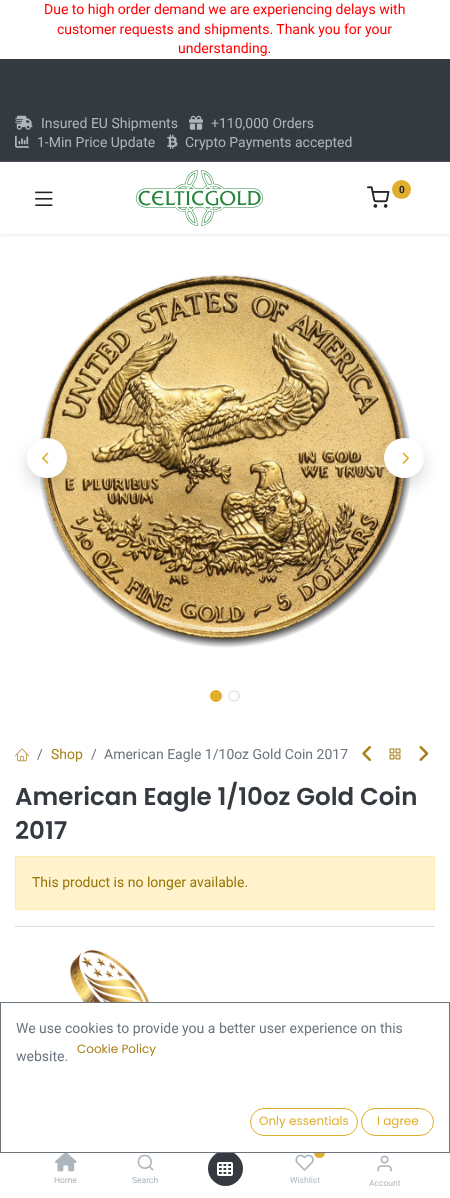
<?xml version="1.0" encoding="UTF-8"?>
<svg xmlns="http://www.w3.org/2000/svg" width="450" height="1198">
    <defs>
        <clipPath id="clip1"><rect x="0" y="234" width="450" height="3"/></clipPath>
        <filter id="blur1" x="-50%" y="-200%" width="200%" height="500%"><feGaussianBlur stdDeviation="2"/></filter>
        <filter id="blur2" x="-50%" y="-200%" width="200%" height="500%"><feGaussianBlur stdDeviation="8"/></filter>
    </defs>
    <rect width="100%" height="100%" fill="#FFFFFF"/>
    <text x="44" y="14" font-family="Roboto" font-size="14" fill="#FF0000">Due to high order demand we are experiencing delays with</text>
    <text x="57" y="34" font-family="Roboto" font-size="14" fill="#FF0000">customer requests and shipments. Thank you for your</text>
    <text x="178" y="53" font-family="Roboto" font-size="14" fill="#FF0000">understanding.</text>
    <rect x="0" y="59" width="450" height="102" fill="#343A40"/>
    <rect x="0" y="161" width="450" height="1" fill="#4C5257"/>
    <image x="15" y="115" width="18" height="15" href="img_01.png"/>
    <text x="41" y="128" font-family="Roboto" font-size="14" fill="#ADB5BD">Insured EU Shipments</text>
    <image x="189" y="115" width="14" height="15" href="img_02.png"/>
    <text x="211" y="128" font-family="Roboto" font-size="14" fill="#ADB5BD">+110,000 Orders</text>
    <image x="15" y="135" width="14" height="13" href="img_03.png"/>
    <text x="37" y="147" font-family="Roboto" font-size="14" fill="#ADB5BD">1-Min Price Update</text>
    <image x="167" y="134" width="11" height="15" href="img_04.png"/>
    <text x="185" y="147" font-family="Roboto" font-size="14" fill="#ADB5BD">Crypto Payments accepted</text>
    <g clip-path="url(#clip1)">
        <rect x="0" y="164" width="450" height="72" fill="#000000" fill-opacity="0.07" filter="url(#blur1)"/>
    </g>
    <image x="136" y="170" width="127" height="56" href="img_05.png"/>
    <image x="367" y="186" width="23" height="22" href="img_06.png"/>
    <circle cx="401.5" cy="189.5" r="9.5" fill="#E0AE2D"/>
    <text x="399" y="193" font-family="Roboto" font-size="10" font-weight="700" fill="#212529">0</text>
    <image x="35" y="191" width="18" height="15" href="img_07.png"/>
    <image x="39" y="274" width="373" height="374" href="img_08.png"/>
    <rect x="27" y="446" width="40" height="40" rx="20" fill="#000000" fill-opacity="0.15" filter="url(#blur2)"/>
    <circle cx="47" cy="458" r="20" fill="#FFFFFF"/>
    <image x="42" y="452" width="7" height="12" href="img_09.png"/>
    <rect x="384" y="446" width="40" height="40" rx="20" fill="#000000" fill-opacity="0.15" filter="url(#blur2)"/>
    <circle cx="404" cy="458" r="20" fill="#FFFFFF"/>
    <image x="402" y="452" width="7" height="12" href="img_10.png"/>
    <circle cx="216" cy="696" r="5" fill="#E0AE2D" stroke="#E0AE2D" stroke-width="2"/>
    <circle cx="234" cy="696" r="5" fill="none" stroke="#E7EAED" stroke-width="2"/>
    <image x="15" y="748" width="14" height="14" href="img_11.png"/>
    <text x="37" y="759" font-family="Roboto" font-size="14" fill="#6C757D">/</text>
    <text x="51" y="759" font-family="Roboto" font-size="14" fill="#A88019">Shop</text>
    <text x="91" y="759" font-family="Roboto" font-size="14" fill="#6C757D">/</text>
    <text x="104" y="759" font-family="Roboto" font-size="14" fill="#6C757D">American Eagle 1/10oz Gold Coin 2017</text>
    <image x="362" y="746" width="9" height="15" href="img_12.png"/>
    <image x="389" y="748" width="12" height="12" href="img_13.png"/>
    <image x="419" y="746" width="10" height="15" href="img_14.png"/>
    <text font-family="Poppins" font-size="24.5" font-weight="600" fill="#343A40">
        <tspan x="15" y="805">American Eagle 1/10oz Gold Coin</tspan>
        <tspan x="15" y="839">2017</tspan>
    </text>
    <rect x="15.5" y="856.5" width="419" height="53" fill="#FFF3CD" stroke="#FFECB5"/>
    <text x="32" y="887" font-family="Roboto" font-size="14" fill="#997404">This product is no longer available.</text>
    <rect x="15" y="926" width="420" height="1" fill="#DADDDF"/>
    <image x="15" y="950" width="195" height="52" href="img_15.png"/>
    <circle cx="225.5" cy="1168.5" r="17.5" fill="#343A40"/>
    <circle cx="319.5" cy="1152.5" r="5.5" fill="#E0AE2D"/>
    <rect x="0.5" y="1002.5" width="449" height="150" fill="none" stroke="#6C757D"/>
    <rect x="219" y="1147" width="106" height="5" fill="#FFFFFF"/>
    <text x="16" y="1033" font-family="Roboto" font-size="14" fill="#6C757D">We use cookies to provide you a better user experience on this</text>
    <text x="16" y="1061" font-family="Roboto" font-size="14" fill="#6C757D">website.</text>
    <text x="77" y="1053" font-family="Poppins" font-size="12" fill="#A88019">Cookie Policy</text>
    <rect x="250.5" y="1108.5" width="107" height="27" rx="13.5" fill="none" stroke="#E0AE2D"/>
    <text x="259" y="1125" font-family="Poppins" font-size="12" fill="#E0AE2D">Only essentials</text>
    <rect x="361.5" y="1108.5" width="72" height="27" rx="13.5" fill="none" stroke="#E0AE2D"/>
    <text x="377" y="1125" font-family="Poppins" font-size="12" fill="#E0AE2D">I agree</text>
    <image x="55" y="1153" width="22" height="19" href="img_16.png"/>
    <text x="54" y="1183" font-family="Roboto" font-size="8.5" fill="#ADB5BD">Home</text>
    <image x="137" y="1154" width="17" height="17" href="img_17.png"/>
    <text x="132" y="1183" font-family="Roboto" font-size="8.5" fill="#ADB5BD">Search</text>
    <image x="217" y="1162" width="16" height="14" href="img_18.png"/>
    <image x="295" y="1154" width="19" height="17" href="img_19.png"/>
    <text x="290" y="1183" font-family="Roboto" font-size="8.5" fill="#ADB5BD">Wishlist</text>
    <image x="377" y="1155" width="15" height="17" href="img_20.png"/>
    <text x="369" y="1186" font-family="Roboto" font-size="8.5" fill="#ADB5BD">Account</text>
</svg>
